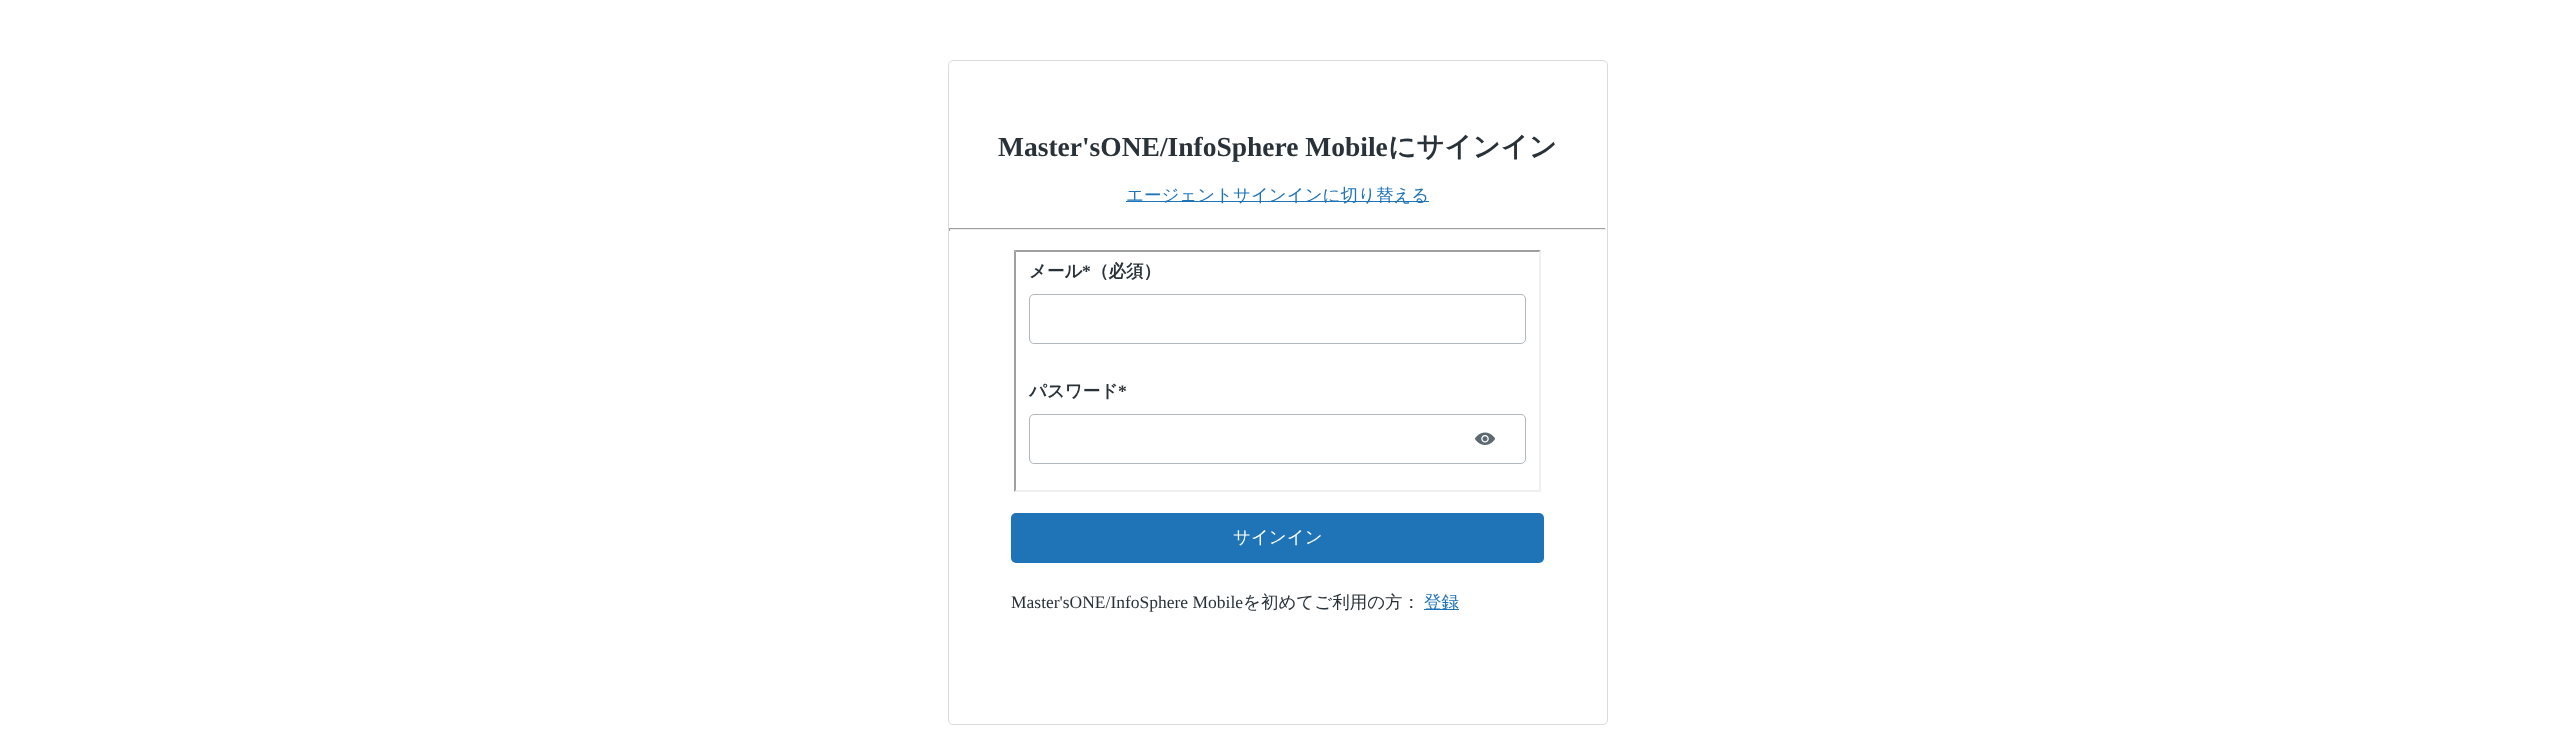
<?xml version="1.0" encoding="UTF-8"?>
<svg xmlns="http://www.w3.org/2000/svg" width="2555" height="733">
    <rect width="100%" height="100%" fill="#FFFFFF"/>
    <rect x="948.5" y="60.5" width="659" height="664" rx="4.5" fill="none" stroke="#D8DCDE"/>
    <text x="998" y="156" font-family="Liberation Serif" font-size="27.5" font-weight="700" fill="#293239">Master'sONE/InfoSphere Mobile</text>
    <text x="1388" y="156" font-family="WenQuanYi Zen Hei" font-size="27.5" font-weight="700" fill="#293239">にサインイン</text>
    <rect x="1126" y="201" width="303" height="1" fill="#1F73B7"/>
    <text x="1126" y="201" font-family="WenQuanYi Zen Hei" font-size="17.5" font-weight="500" fill="#1F73B7">エージェントサインインに切り替える</text>
    <rect x="949" y="228" width="657" height="1" fill="#9F9F9F"/>
    <rect x="1605" y="228" width="1" height="3" fill="#EEEEEE"/>
    <rect x="949" y="229" width="657" height="1" fill="#EEEEEE"/>
    <rect x="949" y="228" width="1" height="3" fill="#9F9F9F"/>
    <path d="M 1014 250 H 1541 L 1539 252 H 1016 Z" fill="#9F9F9F"/>
    <path d="M 1541 250 V 492 L 1539 490 V 252 Z" fill="#EFEFEF"/>
    <path d="M 1541 492 H 1014 L 1016 490 H 1539 Z" fill="#EFEFEF"/>
    <path d="M 1014 492 V 250 L 1016 252 V 490 Z" fill="#9F9F9F"/>
    <text x="1029" y="277" font-family="WenQuanYi Zen Hei" font-size="17.5" font-weight="700" fill="#293239">メール</text>
    <text x="1082" y="277" font-family="Liberation Serif" font-size="17.5" font-weight="700" fill="#293239">*</text>
    <text x="1091" y="277" font-family="WenQuanYi Zen Hei" font-size="17.5" font-weight="700" fill="#293239">（必須）</text>
    <rect x="1029.5" y="294.5" width="496" height="49" rx="4.5" fill="none" stroke="#B0B8BE"/>
    <text x="1029" y="397" font-family="WenQuanYi Zen Hei" font-size="17.5" font-weight="700" fill="#293239">パスワード</text>
    <text x="1118" y="397" font-family="Liberation Serif" font-size="17.5" font-weight="700" fill="#293239">*</text>
    <rect x="1029.5" y="414.5" width="496" height="49" rx="4.5" fill="none" stroke="#B0B8BE"/>
    <image x="1475" y="432" width="20" height="13" href="img_01.png"/>
    <rect x="1011" y="513" width="533" height="50" rx="5" fill="#1F73B7"/>
    <text x="1233" y="543" font-family="WenQuanYi Zen Hei" font-size="17.5" font-weight="500" fill="#FFFFFF">サインイン</text>
    <text x="1011" y="608" font-family="Liberation Serif" font-size="17.5" fill="#293239">Master'sONE/InfoSphere Mobile</text>
    <text x="1243" y="608" font-family="WenQuanYi Zen Hei" font-size="17.5" font-weight="500" fill="#293239">を初めてご利用の方：</text>
    <rect x="1424" y="609" width="35" height="1" fill="#1F73B7"/>
    <text x="1424" y="608" font-family="WenQuanYi Zen Hei" font-size="17.5" font-weight="500" fill="#1F73B7">登録</text>
</svg>
